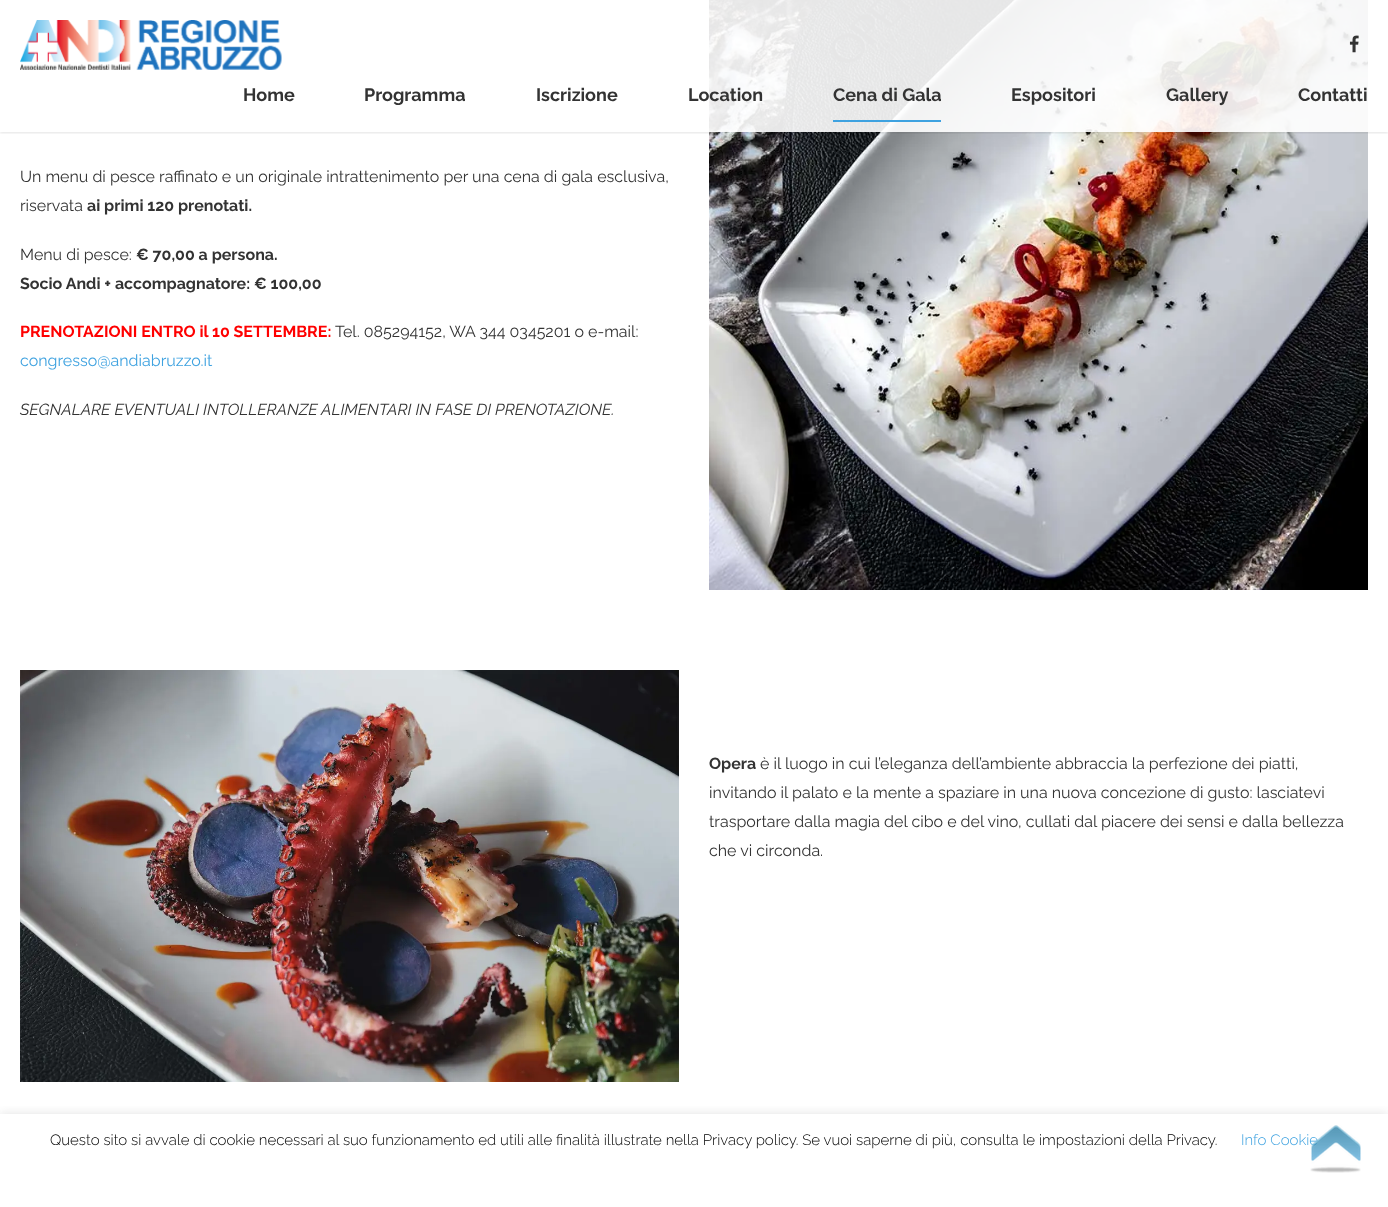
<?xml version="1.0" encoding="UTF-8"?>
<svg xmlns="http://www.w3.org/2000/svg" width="1388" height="1207">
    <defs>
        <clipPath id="clip1"><rect x="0" y="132" width="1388" height="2"/></clipPath>
        <filter id="blur1" x="-50%" y="-200%" width="200%" height="500%"><feGaussianBlur stdDeviation="1.5"/></filter>
        <clipPath id="clip2"><rect x="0" y="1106" width="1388" height="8"/></clipPath>
        <filter id="blur2" x="-50%" y="-200%" width="200%" height="500%"><feGaussianBlur stdDeviation="5"/></filter>
    </defs>
    <rect width="100%" height="100%" fill="#FFFFFF"/>
    <image x="709" y="0" width="659" height="590" href="img_03.png"/>
    <g clip-path="url(#clip1)">
        <rect x="0" y="1" width="1388" height="132" fill="#000000" fill-opacity="0.11" filter="url(#blur1)"/>
    </g>
    <rect x="709" y="0" width="659" height="132" fill="#FFFFFF" fill-opacity="0.9"/>
    <image x="20" y="20" width="262" height="50" href="img_01.png"/>
    <image x="1349" y="35" width="10" height="18" href="img_02.png"/>
    <text x="243" y="101" font-family="Raleway" font-size="18" font-weight="700" fill="#333333">Home</text>
    <text x="364" y="101" font-family="Raleway" font-size="18" font-weight="700" fill="#333333">Programma</text>
    <text x="536" y="101" font-family="Raleway" font-size="18" font-weight="700" fill="#333333">Iscrizione</text>
    <text x="688" y="101" font-family="Raleway" font-size="18" font-weight="700" fill="#333333">Location</text>
    <rect x="833" y="120" width="108" height="2" fill="#3EA2E0"/>
    <text x="833" y="101" font-family="Raleway" font-size="18" font-weight="700" fill="#333333">Cena di Gala</text>
    <text x="1011" y="101" font-family="Raleway" font-size="18" font-weight="700" fill="#333333">Espositori</text>
    <text x="1166" y="101" font-family="Raleway" font-size="18" font-weight="700" fill="#333333">Gallery</text>
    <text x="1298" y="101" font-family="Raleway" font-size="18" font-weight="700" fill="#333333">Contatti</text>
    <text font-family="Raleway" font-size="16" fill="#333333">
        <tspan x="20" y="182">Un menu di pesce raffinato e un originale intrattenimento per una cena di gala esclusiva,</tspan>
        <tspan x="20" y="211">riservata</tspan>
    </text>
    <text x="87" y="211" font-family="Raleway" font-size="16" font-weight="700" fill="#333333">ai primi 120 prenotati.</text>
    <text x="20" y="260" font-family="Raleway" font-size="16" fill="#333333">Menu di pesce:</text>
    <text x="136" y="260" font-family="Raleway" font-size="16" font-weight="700" fill="#333333">€ 70,00 a persona.</text>
    <text x="20" y="289" font-family="Raleway" font-size="16" font-weight="700" fill="#333333">Socio Andi + accompagnatore: € 100,00</text>
    <text x="20" y="337" font-family="Raleway" font-size="16" font-weight="700" fill="#FF0000">PRENOTAZIONI ENTRO il 10 SETTEMBRE:</text>
    <text x="335" y="337" font-family="Raleway" font-size="16" fill="#333333">Tel. 085294152, WA 344 0345201 o e-mail:</text>
    <text x="20" y="366" font-family="Raleway" font-size="16" fill="#3EA2E0">congresso@andiabruzzo.it</text>
    <text x="20" y="415" font-family="Raleway" font-size="16" font-style="italic" fill="#333333">SEGNALARE EVENTUALI INTOLLERANZE ALIMENTARI IN FASE DI PRENOTAZIONE.</text>
    <image x="20" y="670" width="659" height="412" href="img_04.png"/>
    <text x="709" y="769" font-family="Raleway" font-size="16" font-weight="700" fill="#333333">Opera</text>
    <text x="760" y="769" font-family="Raleway" font-size="16" fill="#333333">è il luogo in cui l’eleganza dell’ambiente abbraccia la perfezione dei piatti,</text>
    <text font-family="Raleway" font-size="16" fill="#333333">
        <tspan x="709" y="798">invitando il palato e la mente a spaziare in una nuova concezione di gusto: lasciatevi</tspan>
        <tspan x="709" y="827">trasportare dalla magia del cibo e del vino, cullati dal piacere dei sensi e dalla bellezza</tspan>
        <tspan x="709" y="856">che vi circonda.</tspan>
    </text>
    <g clip-path="url(#clip2)">
        <rect x="0" y="1113" width="1388" height="93" fill="#ACABAB" fill-opacity="0.3" filter="url(#blur2)"/>
    </g>
    <text x="50" y="1145" font-family="Raleway" font-size="15" font-weight="300" fill="#000000">Questo sito si avvale di cookie necessari al suo funzionamento ed utili alle finalità illustrate nella Privacy policy. Se vuoi saperne di più, consulta le impostazioni della Privacy.</text>
    <text x="1241" y="1145" font-family="Raleway" font-size="15" font-weight="300" fill="#3EA2E0">Info Cookie</text>
    <image x="1310" y="1125" width="51" height="48" href="img_05.png"/>
</svg>
